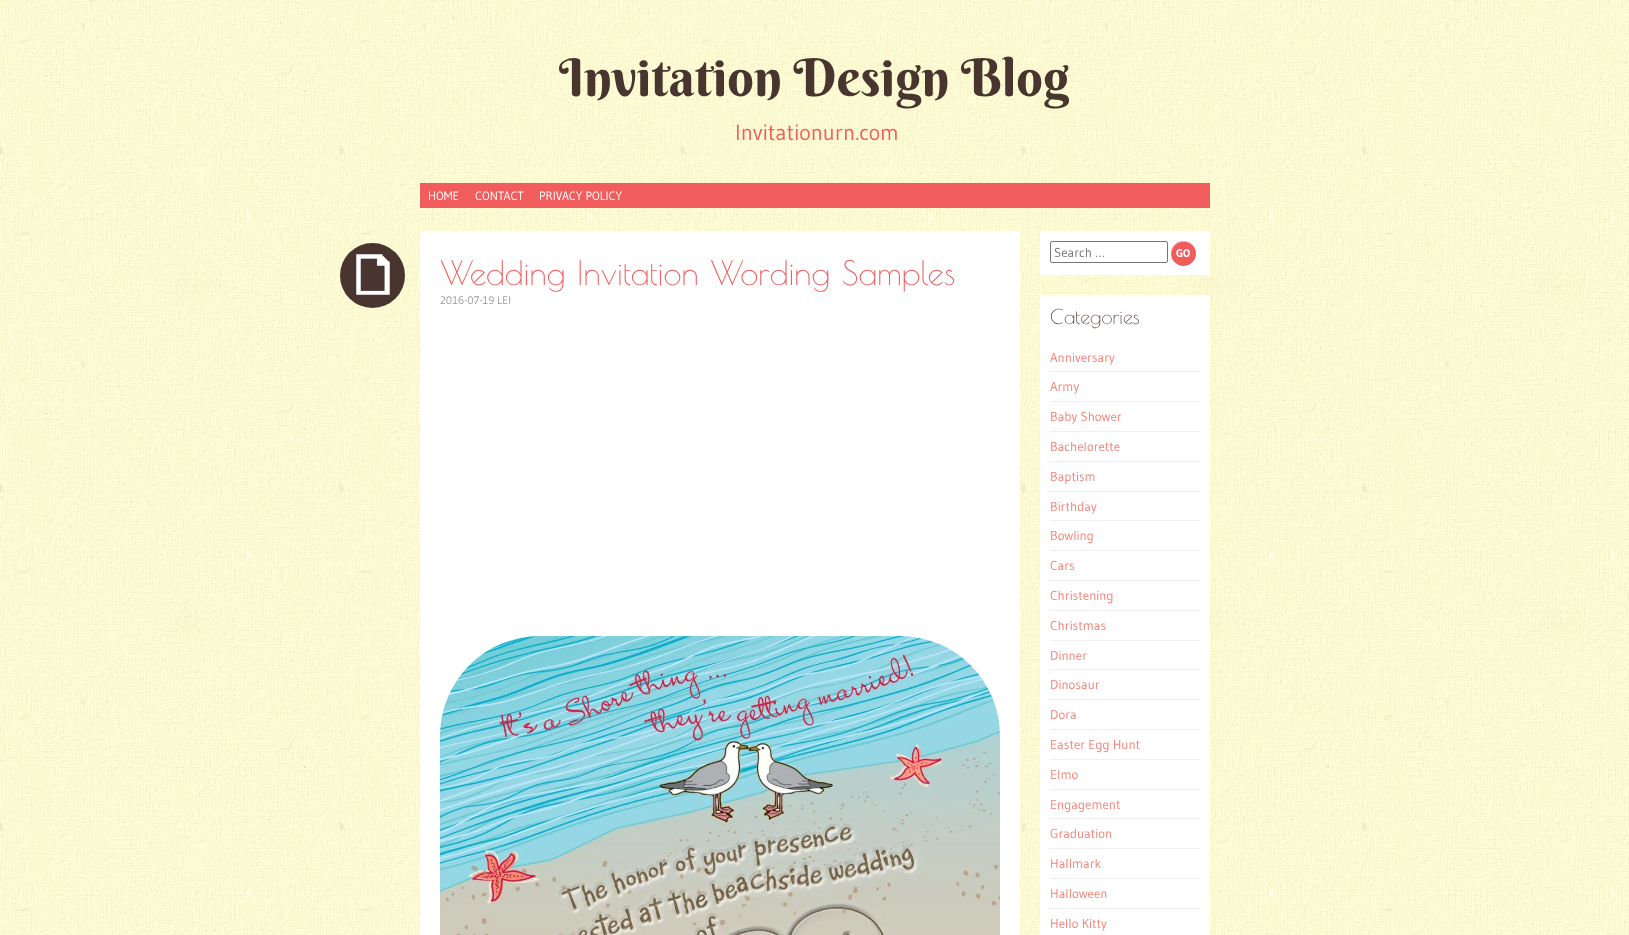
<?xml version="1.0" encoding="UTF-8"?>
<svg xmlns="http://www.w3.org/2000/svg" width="1629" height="935">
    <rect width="100%" height="100%" fill="#FFFFFF"/>
    <image x="0" y="0" width="1629" height="935" href="img_01.png"/>
    <text x="559" y="96" font-family="Berkshire Swash" font-size="52" fill="#49352F">Invitation Design Blog</text>
    <text x="735" y="140" font-family="Gudea" font-size="22" fill="#F15D5D">Invitationurn.com</text>
    <rect x="420" y="183" width="790" height="25" fill="#F15D5D"/>
    <text x="428" y="200" font-family="Gudea" font-size="12" fill="#FFFFFF">HOME</text>
    <text x="475" y="200" font-family="Gudea" font-size="12" fill="#FFFFFF">CONTACT</text>
    <text x="539" y="200" font-family="Gudea" font-size="12" fill="#FFFFFF">PRIVACY POLICY</text>
    <rect x="420" y="231" width="600" height="704" fill="#FFFFFF"/>
    <circle cx="372.5" cy="275.5" r="32.5" fill="#49352F"/>
    <image x="356" y="254" width="34" height="41" href="img_02.png"/>
    <text x="440" y="285" font-family="Poiret One" font-size="33" fill="#F15D5D">Wedding Invitation Wording Samples</text>
    <text x="440" y="304" font-family="Gudea" font-size="11" fill="#999999">2016-07-19 LEI</text>
    <image x="440" y="636" width="560" height="299" href="img_03.png"/>
    <rect x="1040" y="231" width="170" height="44" fill="#FFFFFF"/>
    <rect x="1050.5" y="241.5" width="117" height="21" rx="1.5" fill="none" stroke="#767676"/>
    <text x="1054" y="257" font-family="Gudea" font-size="13" fill="#757575">Search …</text>
    <circle cx="1183.5" cy="253.5" r="12.5" fill="#F15D5D"/>
    <path d="M 1184 242 C 1192 242 1196 248 1196 254 C 1196 251.5 1195.5 248.5 1194 246.5 C 1186 234.5 1168 243.5 1171.5 257 C 1170.5 250 1174.5 242 1184 242 Z" fill="#FFFFFF" fill-opacity="0.5"/>
    <text x="1176" y="257" font-family="Gudea" font-size="11" font-weight="700" fill="#FFFFFF">GO</text>
    <rect x="1040" y="295" width="170" height="640" fill="#FFFFFF"/>
    <text x="1050" y="324" font-family="Poiret One" font-size="20" fill="#49352F">Categories</text>
    <rect x="1050" y="371" width="150" height="1" fill="#EFEFEF"/>
    <text x="1050" y="362" font-family="Gudea" font-size="13" fill="#F48278">Anniversary</text>
    <rect x="1050" y="401" width="150" height="1" fill="#EFEFEF"/>
    <text x="1050" y="391" font-family="Gudea" font-size="13" fill="#F48278">Army</text>
    <rect x="1050" y="431" width="150" height="1" fill="#EFEFEF"/>
    <text x="1050" y="421" font-family="Gudea" font-size="13" fill="#F48278">Baby Shower</text>
    <rect x="1050" y="461" width="150" height="1" fill="#EFEFEF"/>
    <text x="1050" y="451" font-family="Gudea" font-size="13" fill="#F48278">Bachelorette</text>
    <rect x="1050" y="491" width="150" height="1" fill="#EFEFEF"/>
    <text x="1050" y="481" font-family="Gudea" font-size="13" fill="#F48278">Baptism</text>
    <rect x="1050" y="520" width="150" height="1" fill="#EFEFEF"/>
    <text x="1050" y="511" font-family="Gudea" font-size="13" fill="#F48278">Birthday</text>
    <rect x="1050" y="550" width="150" height="1" fill="#EFEFEF"/>
    <text x="1050" y="540" font-family="Gudea" font-size="13" fill="#F48278">Bowling</text>
    <rect x="1050" y="580" width="150" height="1" fill="#EFEFEF"/>
    <text x="1050" y="570" font-family="Gudea" font-size="13" fill="#F48278">Cars</text>
    <rect x="1050" y="610" width="150" height="1" fill="#EFEFEF"/>
    <text x="1050" y="600" font-family="Gudea" font-size="13" fill="#F48278">Christening</text>
    <rect x="1050" y="640" width="150" height="1" fill="#EFEFEF"/>
    <text x="1050" y="630" font-family="Gudea" font-size="13" fill="#F48278">Christmas</text>
    <rect x="1050" y="669" width="150" height="1" fill="#EFEFEF"/>
    <text x="1050" y="660" font-family="Gudea" font-size="13" fill="#F48278">Dinner</text>
    <rect x="1050" y="699" width="150" height="1" fill="#EFEFEF"/>
    <text x="1050" y="689" font-family="Gudea" font-size="13" fill="#F48278">Dinosaur</text>
    <rect x="1050" y="729" width="150" height="1" fill="#EFEFEF"/>
    <text x="1050" y="719" font-family="Gudea" font-size="13" fill="#F48278">Dora</text>
    <rect x="1050" y="759" width="150" height="1" fill="#EFEFEF"/>
    <text x="1050" y="749" font-family="Gudea" font-size="13" fill="#F48278">Easter Egg Hunt</text>
    <rect x="1050" y="789" width="150" height="1" fill="#EFEFEF"/>
    <text x="1050" y="779" font-family="Gudea" font-size="13" fill="#F48278">Elmo</text>
    <rect x="1050" y="818" width="150" height="1" fill="#EFEFEF"/>
    <text x="1050" y="809" font-family="Gudea" font-size="13" fill="#F48278">Engagement</text>
    <rect x="1050" y="848" width="150" height="1" fill="#EFEFEF"/>
    <text x="1050" y="838" font-family="Gudea" font-size="13" fill="#F48278">Graduation</text>
    <rect x="1050" y="878" width="150" height="1" fill="#EFEFEF"/>
    <text x="1050" y="868" font-family="Gudea" font-size="13" fill="#F48278">Hallmark</text>
    <rect x="1050" y="908" width="150" height="1" fill="#EFEFEF"/>
    <text x="1050" y="898" font-family="Gudea" font-size="13" fill="#F48278">Halloween</text>
    <text x="1050" y="928" font-family="Gudea" font-size="13" fill="#F48278">Hello Kitty</text>
</svg>
